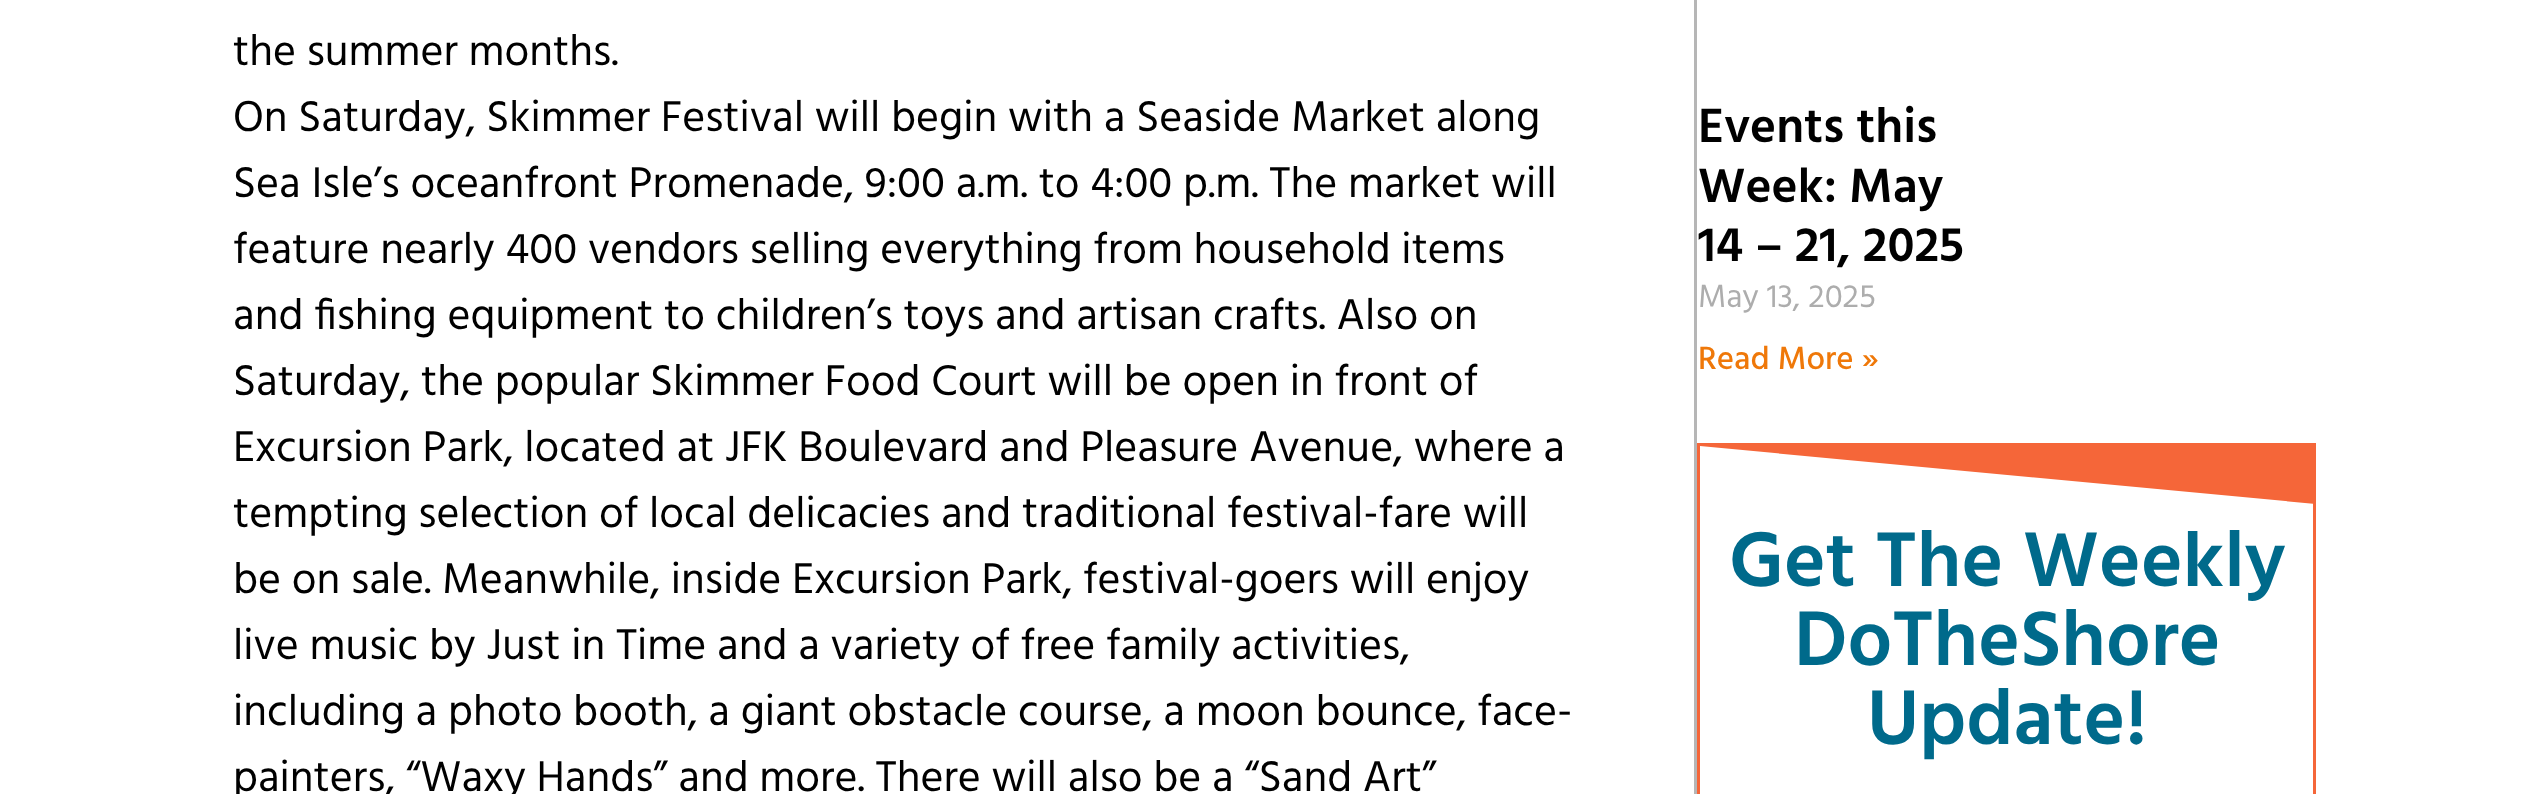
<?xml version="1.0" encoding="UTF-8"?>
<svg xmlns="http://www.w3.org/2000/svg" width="2548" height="794">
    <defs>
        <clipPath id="clip1"><rect x="1700" y="443" width="613" height="63"/></clipPath>
    </defs>
    <rect width="100%" height="100%" fill="#FFFFFF"/>
    <text font-family="Hind" font-size="44" fill="#000000">
        <tspan x="233" y="65">the summer months.</tspan>
        <tspan x="233" y="131">On Saturday, Skimmer Festival will begin with a Seaside Market along</tspan>
        <tspan x="233" y="197">Sea Isle’s oceanfront Promenade, 9:00 a.m. to 4:00 p.m. The market will</tspan>
        <tspan x="233" y="263">feature nearly 400 vendors selling everything from household items</tspan>
        <tspan x="233" y="329">and fishing equipment to children’s toys and artisan crafts. Also on</tspan>
        <tspan x="233" y="395">Saturday, the popular Skimmer Food Court will be open in front of</tspan>
        <tspan x="233" y="461">Excursion Park, located at JFK Boulevard and Pleasure Avenue, where a</tspan>
        <tspan x="233" y="527">tempting selection of local delicacies and traditional festival-fare will</tspan>
        <tspan x="233" y="593">be on sale. Meanwhile, inside Excursion Park, festival-goers will enjoy</tspan>
        <tspan x="233" y="659">live music by Just in Time and a variety of free family activities,</tspan>
        <tspan x="233" y="725">including a photo booth, a giant obstacle course, a moon bounce, face-</tspan>
        <tspan x="233" y="791">painters, “Waxy Hands” and more. There will also be a “Sand Art”</tspan>
    </text>
    <rect x="1694" y="0" width="3" height="794" fill="#B6B6B6"/>
    <text font-family="Hind" font-size="49.5" font-weight="600" fill="#000000">
        <tspan x="1698" y="142">Events this</tspan>
        <tspan x="1698" y="202">Week: May</tspan>
        <tspan x="1698" y="261">14 – 21, 2025</tspan>
    </text>
    <text x="1698" y="307" font-family="Hind" font-size="33" fill="#ADADAD">May 13, 2025</text>
    <text x="1698" y="369" font-family="Hind" font-size="33" font-weight="500" fill="#EF7809">Read More »</text>
    <rect x="1698.5" y="444.5" width="616" height="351" fill="none" stroke="#F56639" stroke-width="3"/>
    <g clip-path="url(#clip1)">
        <path d="M 1699 446 V 443 H 2316 V 504 Z" fill="#F56639"/>
    </g>
    <text x="1729" y="586" font-family="Hind" font-size="79.25" font-weight="600" fill="#006A8B">Get The Weekly</text>
    <text x="1794" y="665" font-family="Hind" font-size="79.25" font-weight="600" fill="#006A8B">DoTheShore</text>
    <text x="1867" y="744" font-family="Hind" font-size="79.25" font-weight="600" fill="#006A8B">Update!</text>
</svg>
